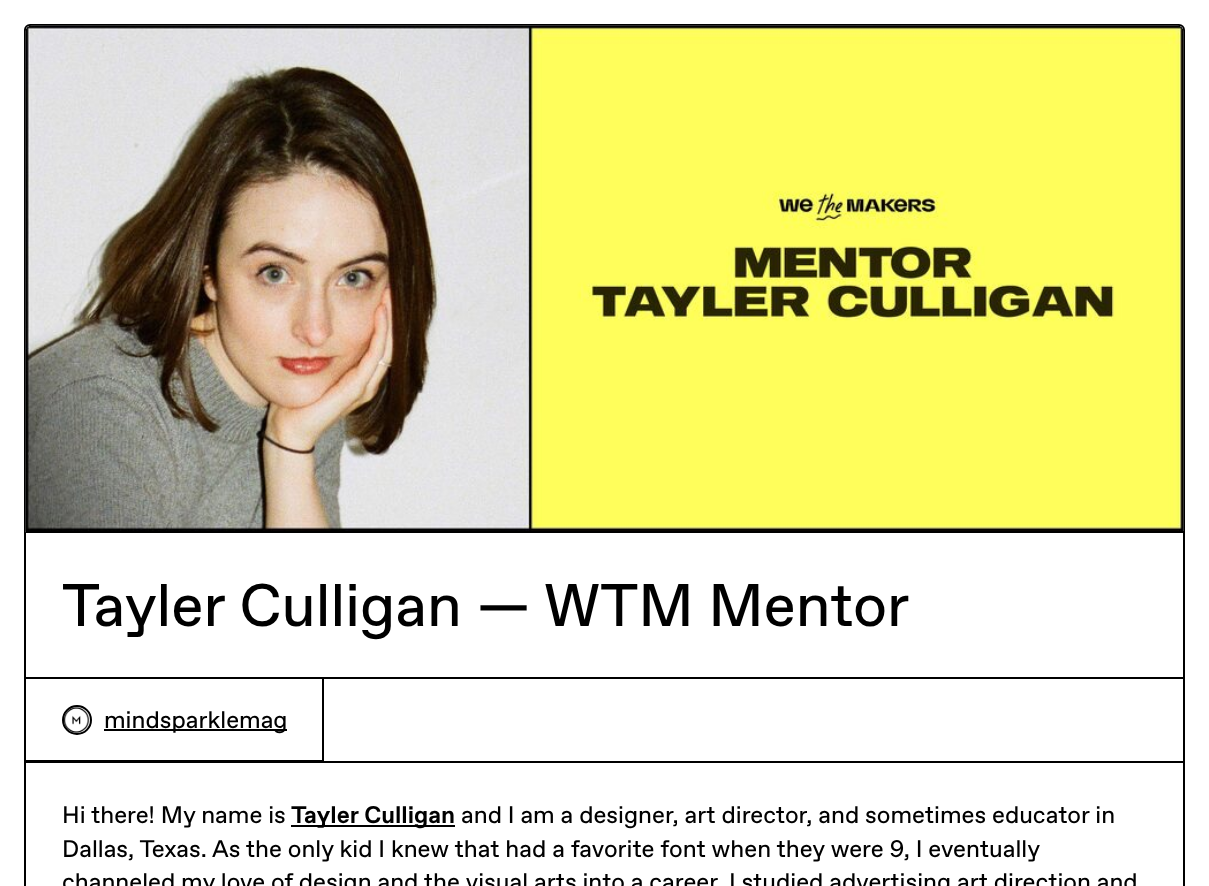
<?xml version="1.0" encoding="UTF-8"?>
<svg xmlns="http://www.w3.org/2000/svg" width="1209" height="886">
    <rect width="100%" height="100%" fill="#FFFFFF"/>
    <rect x="25" y="25" width="1159" height="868" rx="5" fill="none" stroke="#000000" stroke-width="2"/>
    <image x="25" y="25" width="1159" height="508" href="img_01.png"/>
    <rect x="26" y="531" width="1158" height="2" fill="#000000"/>
    <image x="25" y="25" width="1159" height="506" href="img_02.png"/>
    <text x="62" y="626" font-family="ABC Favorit" font-size="60" fill="#000000">Tayler Culligan — WTM Mentor</text>
    <rect x="324" y="677" width="860" height="2" fill="#000000"/>
    <rect x="26" y="761" width="1158" height="2" fill="#000000"/>
    <rect x="25" y="678" width="298" height="83" fill="none" stroke="#000000" stroke-width="2"/>
    <circle cx="77" cy="720" r="14" fill="none" stroke="#000000" stroke-width="2"/>
    <image x="64" y="707" width="26" height="26" href="img_03.png"/>
    <rect x="104" y="729" width="183" height="2" fill="#000000"/>
    <text x="104" y="728" font-family="ABC Favorit" font-size="24" fill="#000000">mindsparklemag</text>
    <text x="62" y="823" font-family="ABC Favorit" font-size="24" fill="#000000">Hi there! My name is</text>
    <rect x="291" y="825" width="164" height="2" fill="#000000"/>
    <text x="291" y="823" font-family="ABC Favorit" font-size="24" font-weight="700" fill="#000000">Tayler Culligan</text>
    <text x="461" y="823" font-family="ABC Favorit" font-size="24" fill="#000000">and I am a designer, art director, and sometimes educator in</text>
    <text font-family="ABC Favorit" font-size="24" fill="#000000">
        <tspan x="62" y="857">Dallas, Texas. As the only kid I knew that had a favorite font when they were 9, I eventually</tspan>
        <tspan x="62" y="890">channeled my love of design and the visual arts into a career. I studied advertising art direction and</tspan>
    </text>
</svg>
